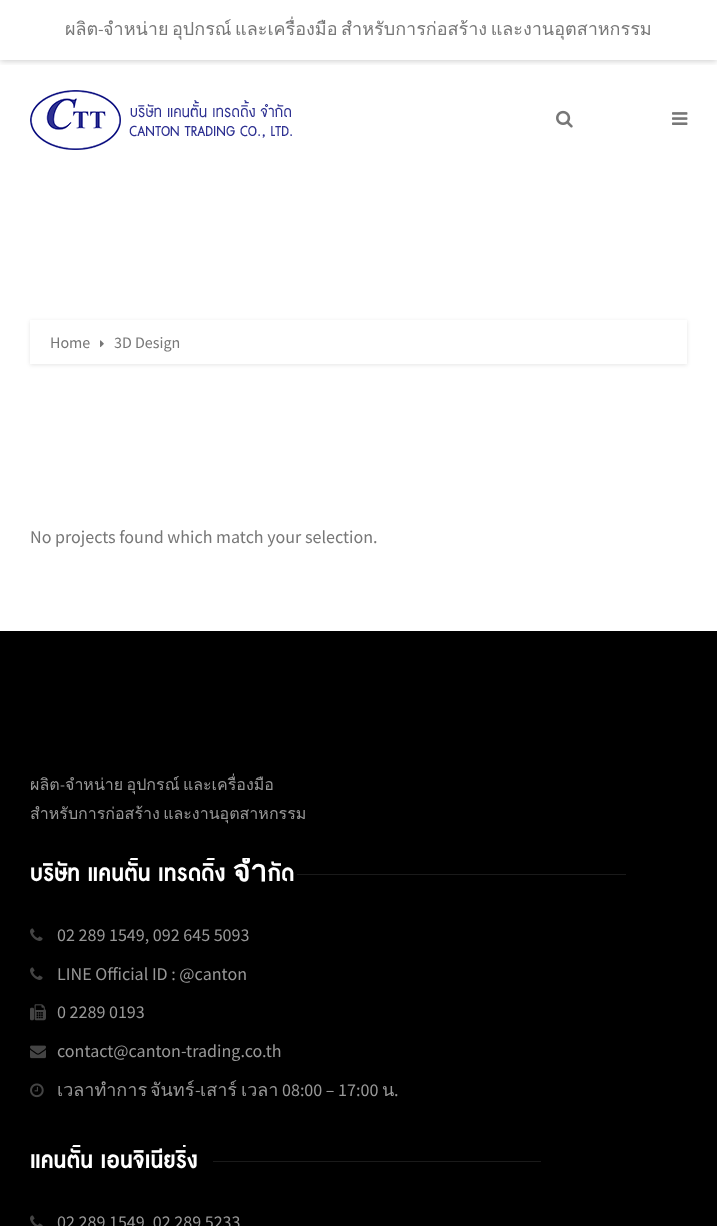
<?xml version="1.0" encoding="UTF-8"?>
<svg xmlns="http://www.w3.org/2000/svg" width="717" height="1226">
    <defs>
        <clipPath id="clip1"><rect x="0" y="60" width="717" height="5"/></clipPath>
        <filter id="blur1" x="-50%" y="-200%" width="200%" height="500%"><feGaussianBlur stdDeviation="3"/></filter>
        <clipPath id="clip2"><path d="M 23 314 H 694 V 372 H 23 Z M 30 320 H 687 V 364 H 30 Z" clip-rule="evenodd"/></clipPath>
        <filter id="blur2" x="-50%" y="-200%" width="200%" height="500%"><feGaussianBlur stdDeviation="2"/></filter>
        <clipPath id="clip3"><rect x="30" y="858" width="657" height="33"/></clipPath>
        <clipPath id="clip4"><rect x="30" y="1145" width="657" height="33"/></clipPath>
    </defs>
    <rect width="100%" height="100%" fill="#FFFFFF"/>
    <g clip-path="url(#clip1)">
        <rect x="0" y="1" width="717" height="60" fill="#000000" fill-opacity="0.2" filter="url(#blur1)"/>
    </g>
    <text x="65" y="35" font-family="Loma" font-size="18" fill="#777777">ผลิต</text>
    <text x="98" y="35" font-family="Source Sans Pro" font-size="18" fill="#777777">-</text>
    <text x="103" y="35" word-spacing="-2.5" font-family="Loma" font-size="18" fill="#777777">จำหน่าย อุปกรณ์ และเครื่องมือ สำหรับการก่อสร้าง และงานอุตสาหกรรม</text>
    <image x="30" y="90" width="262" height="60" href="img_01.png"/>
    <image x="556" y="110" width="17" height="18" href="img_02.png"/>
    <image x="672" y="112" width="16" height="13" href="img_03.png"/>
    <g clip-path="url(#clip2)">
        <rect x="30" y="321" width="657" height="44" fill="#000000" fill-opacity="0.1" filter="url(#blur2)"/>
    </g>
    <text x="50" y="348" font-family="Source Sans Pro" font-size="16" fill="#777777">Home</text>
    <image x="100" y="340" width="4" height="8" href="img_04.png"/>
    <text x="114" y="348" font-family="Source Sans Pro" font-size="16" fill="#777777">3D Design</text>
    <text x="30" y="543" font-family="Source Sans Pro" font-size="18" fill="#777777">No projects found which match your selection.</text>
    <rect x="0" y="631" width="717" height="595" fill="#000000"/>
    <text x="30" y="790" font-family="Loma" font-size="16" fill="#989898">ผลิต</text>
    <text x="60" y="790" font-family="Source Sans Pro" font-size="16" fill="#989898">-</text>
    <text x="65" y="790" word-spacing="-2" font-family="Loma" font-size="16" fill="#989898">จำหน่าย อุปกรณ์ และเครื่องมือ</text>
    <text x="30" y="819" word-spacing="-2" font-family="Loma" font-size="16" fill="#989898">สำหรับการก่อสร้าง และงานอุตสาหกรรม</text>
    <g clip-path="url(#clip3)">
        <text x="30" y="881" font-family="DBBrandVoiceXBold" font-size="30" font-weight="700" fill="#FFFFFF">บริษัท แคนตั้น เทรดดิ้ง จำกัด</text>
    </g>
    <rect x="297" y="874" width="329" height="1" fill="#1A1A1A"/>
    <image x="30" y="928" width="13" height="13" href="img_05.png"/>
    <text x="57" y="941" font-family="Source Sans Pro" font-size="18" fill="#989898">02 289 1549, 092 645 5093</text>
    <image x="30" y="967" width="13" height="13" href="img_05.png"/>
    <text x="57" y="980" font-family="Source Sans Pro" font-size="18" fill="#989898">LINE Official ID : @canton</text>
    <image x="30" y="1004" width="16" height="17" href="img_06.png"/>
    <text x="57" y="1018" font-family="Source Sans Pro" font-size="18" fill="#989898">0 2289 0193</text>
    <image x="30" y="1045" width="16" height="14" href="img_07.png"/>
    <text x="57" y="1057" font-family="Source Sans Pro" font-size="18" fill="#989898">contact@canton-trading.co.th</text>
    <image x="30" y="1083" width="14" height="15" href="img_08.png"/>
    <text x="57" y="1096" font-family="Loma" font-size="18" fill="#989898">เวลาทำการ</text>
    <text x="150" y="1096" font-family="Loma" font-size="18" fill="#989898">จันทร์</text>
    <text x="195" y="1096" font-family="Source Sans Pro" font-size="18" fill="#989898">-</text>
    <text x="200" y="1096" font-family="Loma" font-size="18" fill="#989898">เสาร์</text>
    <text x="241" y="1096" font-family="Loma" font-size="18" fill="#989898">เวลา</text>
    <text x="282" y="1096" font-family="Source Sans Pro" font-size="18" fill="#989898">08:00 – 17:00</text>
    <text x="382" y="1096" font-family="Loma" font-size="18" fill="#989898">น</text>
    <text x="394" y="1096" font-family="Source Sans Pro" font-size="18" fill="#989898">.</text>
    <g clip-path="url(#clip4)">
        <text x="30" y="1168" font-family="DBBrandVoiceXBold" font-size="30" font-weight="700" fill="#FFFFFF">แคนตั้น เอนจิเนียริ่ง</text>
    </g>
    <rect x="213" y="1161" width="328" height="1" fill="#1A1A1A"/>
    <image x="30" y="1215" width="13" height="11" href="img_09.png"/>
    <text x="57" y="1228" font-family="Source Sans Pro" font-size="18" fill="#989898">02 289 1549, 02 289 5233</text>
</svg>
